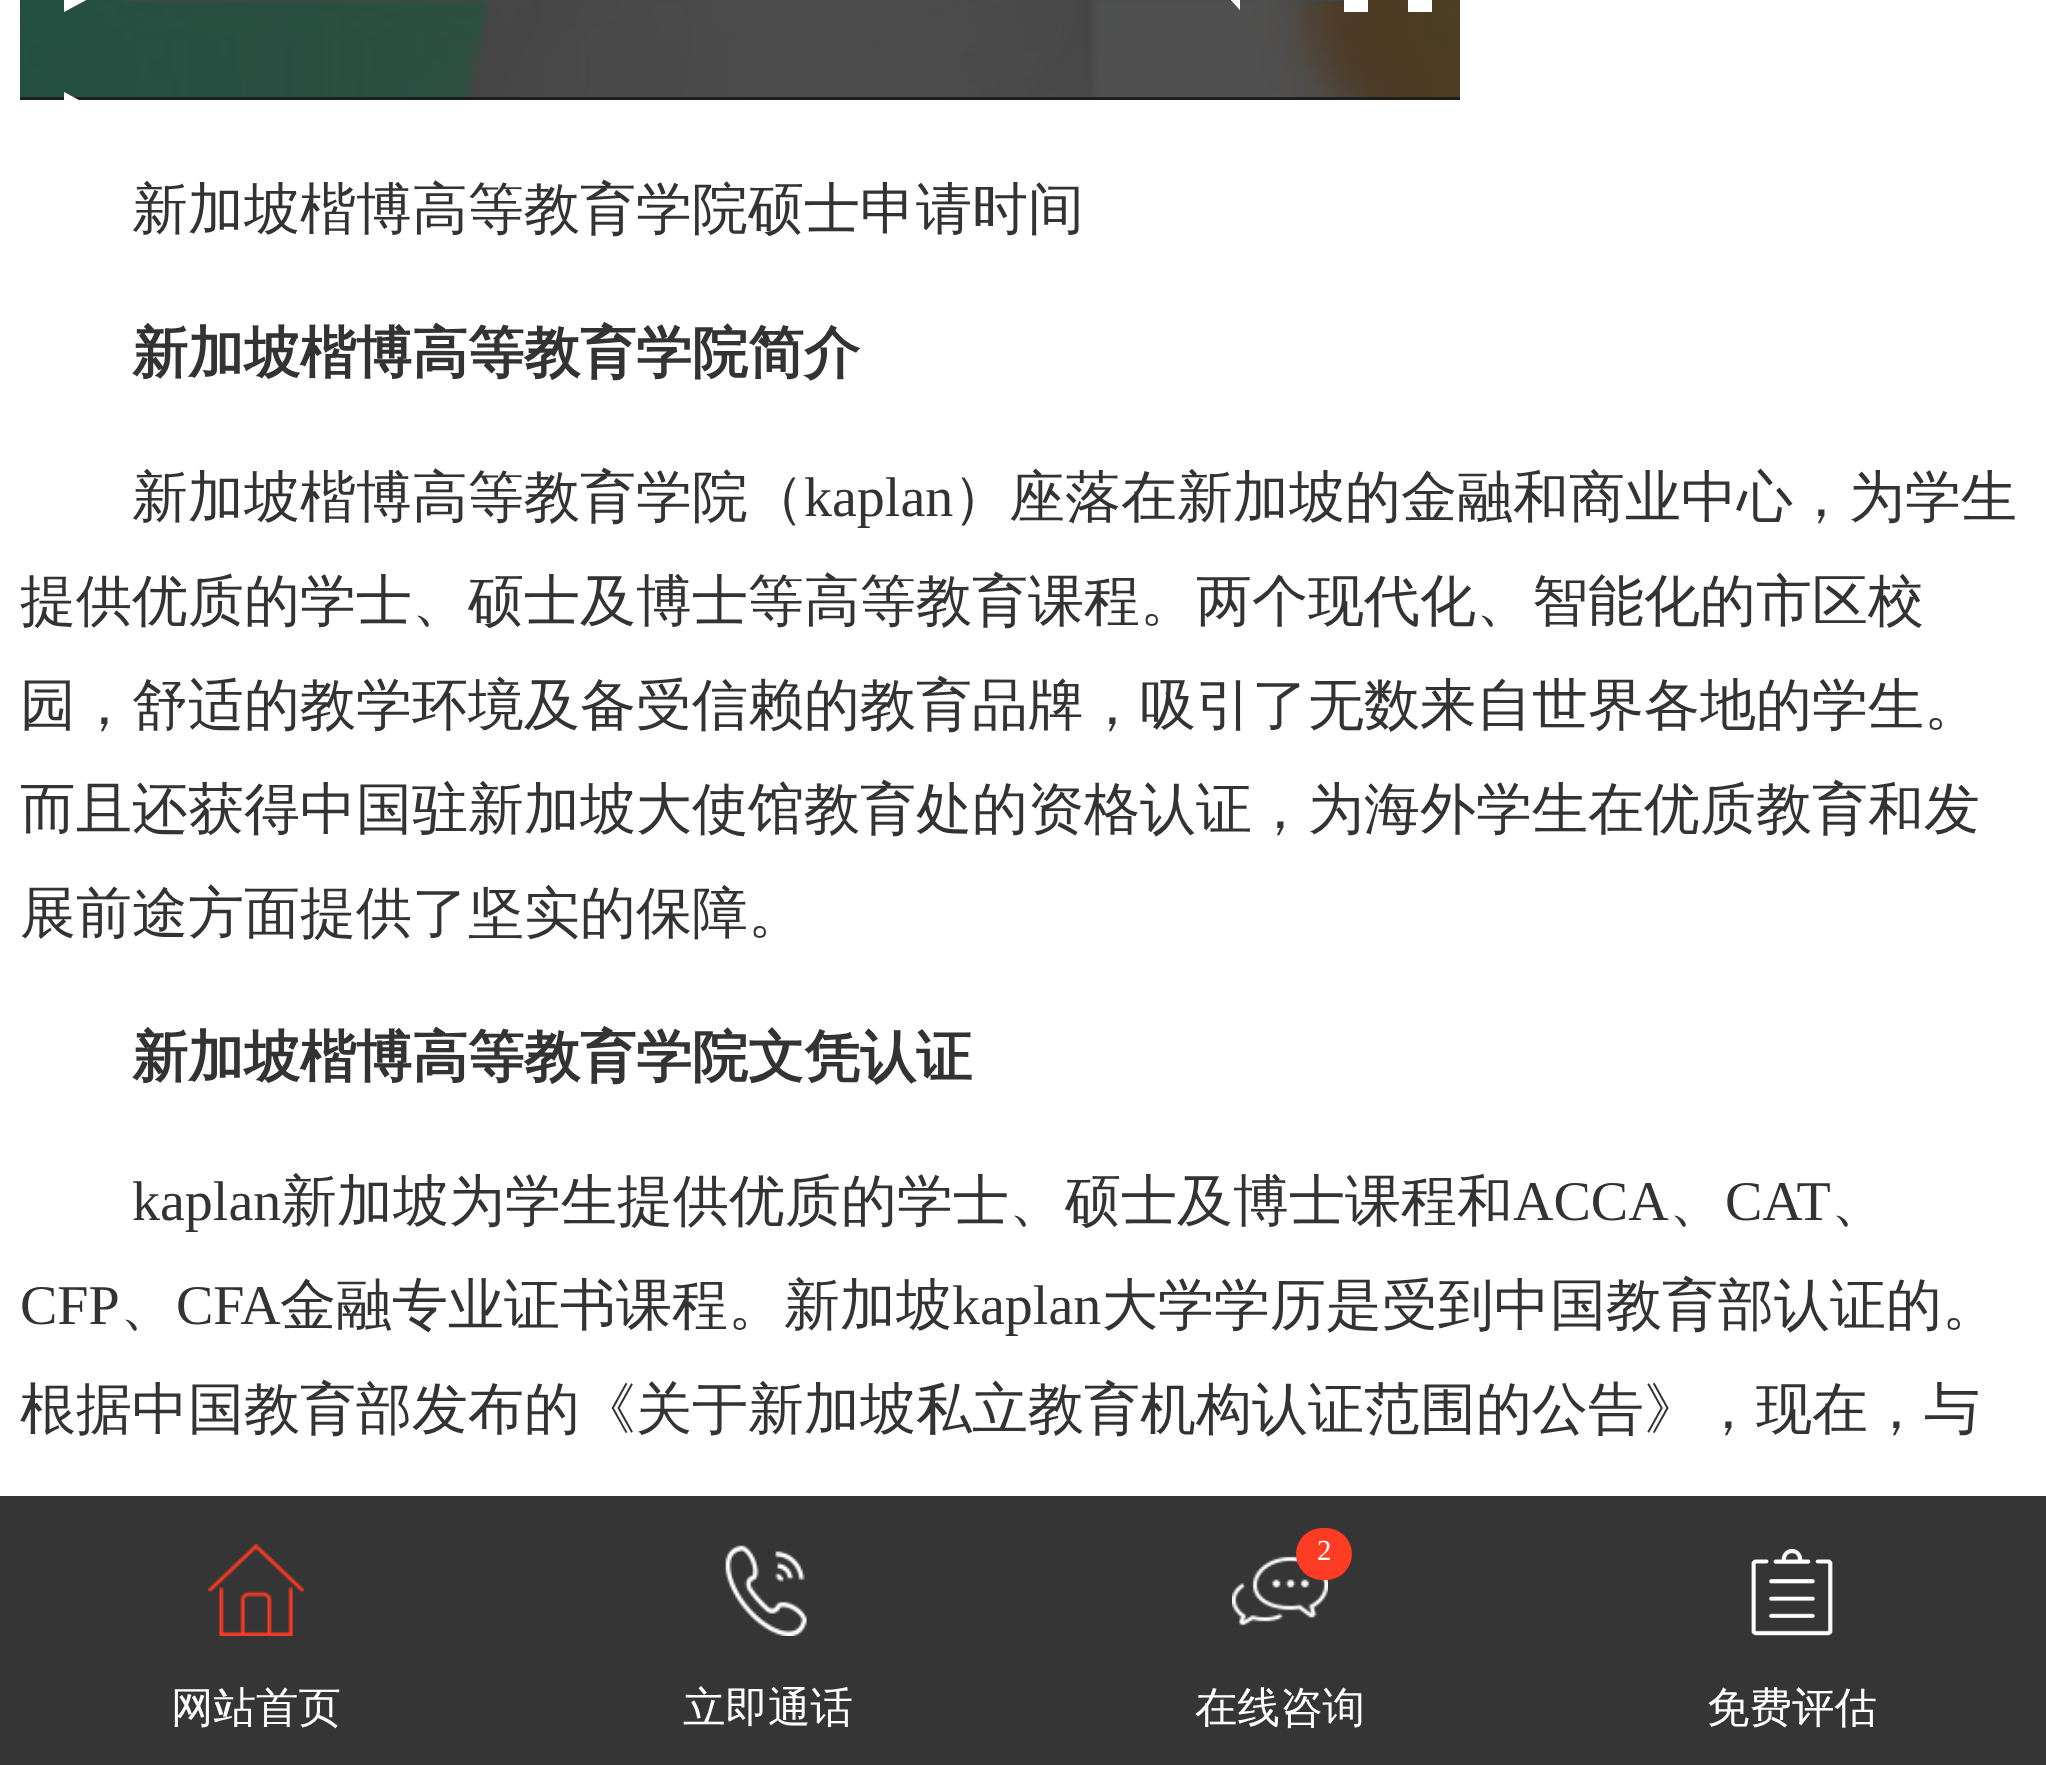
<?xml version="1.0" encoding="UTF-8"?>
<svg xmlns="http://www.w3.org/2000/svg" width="2046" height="1765">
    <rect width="100%" height="100%" fill="#FFFFFF"/>
    <rect x="20" y="97" width="1440" height="3" fill="#1D1D1D"/>
    <image x="20" y="0" width="1440" height="98" href="img_01.png"/>
    <image x="64" y="0" width="23" height="100" href="img_02.png"/>
    <image x="1231" y="0" width="9" height="10" href="img_03.png"/>
    <path d="M 1408 0 V 12 H 1432 V -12 H 1420 V 0 Z" fill="#FFFFFF"/>
    <path d="M 1356 -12 H 1344 V 12 H 1368 V 0 H 1356 Z" fill="#FFFFFF"/>
    <text x="132" y="228" font-family="WenQuanYi Zen Hei" font-size="56" font-weight="500" fill="#333333">新加坡楷博高等教育学院硕士申请时间</text>
    <text x="132" y="372" font-family="WenQuanYi Zen Hei" font-size="56" font-weight="700" fill="#333333">新加坡楷博高等教育学院简介</text>
    <text x="132" y="516" font-family="WenQuanYi Zen Hei" font-size="56" font-weight="500" fill="#333333">新加坡楷博高等教育学院（</text>
    <text x="804" y="516" font-family="Liberation Serif" font-size="56" fill="#333333">kaplan</text>
    <text x="953" y="516" font-family="WenQuanYi Zen Hei" font-size="56" font-weight="500" fill="#333333">）座落在新加坡的金融和商业中心，为学生</text>
    <text font-family="WenQuanYi Zen Hei" font-size="56" font-weight="500" fill="#333333">
        <tspan x="20" y="620">提供优质的学士、硕士及博士等高等教育课程。两个现代化、智能化的市区校</tspan>
        <tspan x="20" y="724">园，舒适的教学环境及备受信赖的教育品牌，吸引了无数来自世界各地的学生。</tspan>
        <tspan x="20" y="828">而且还获得中国驻新加坡大使馆教育处的资格认证，为海外学生在优质教育和发</tspan>
        <tspan x="20" y="932">展前途方面提供了坚实的保障。</tspan>
    </text>
    <text x="132" y="1076" font-family="WenQuanYi Zen Hei" font-size="56" font-weight="700" fill="#333333">新加坡楷博高等教育学院文凭认证</text>
    <text x="132" y="1220" font-family="Liberation Serif" font-size="56" fill="#333333">kaplan</text>
    <text x="281" y="1220" font-family="WenQuanYi Zen Hei" font-size="56" font-weight="500" fill="#333333">新加坡为学生提供优质的学士、硕士及博士课程和</text>
    <text x="1513" y="1220" font-family="Liberation Serif" font-size="56" fill="#333333">ACCA</text>
    <text x="1669" y="1220" font-family="WenQuanYi Zen Hei" font-size="56" font-weight="500" fill="#333333">、</text>
    <text x="1725" y="1220" font-family="Liberation Serif" font-size="56" fill="#333333">CAT</text>
    <text x="1831" y="1220" font-family="WenQuanYi Zen Hei" font-size="56" font-weight="500" fill="#333333">、</text>
    <text x="20" y="1324" font-family="Liberation Serif" font-size="56" fill="#333333">CFP</text>
    <text x="120" y="1324" font-family="WenQuanYi Zen Hei" font-size="56" font-weight="500" fill="#333333">、</text>
    <text x="176" y="1324" font-family="Liberation Serif" font-size="56" fill="#333333">CFA</text>
    <text x="280" y="1324" font-family="WenQuanYi Zen Hei" font-size="56" font-weight="500" fill="#333333">金融专业证书课程。新加坡</text>
    <text x="952" y="1324" font-family="Liberation Serif" font-size="56" fill="#333333">kaplan</text>
    <text x="1102" y="1324" font-family="WenQuanYi Zen Hei" font-size="56" font-weight="500" fill="#333333">大学学历是受到中国教育部认证的。</text>
    <text x="20" y="1428" font-family="WenQuanYi Zen Hei" font-size="56" font-weight="500" fill="#333333">根据中国教育部发布的《关于新加坡私立教育机构认证范围的公告》，现在，与</text>
    <rect x="0" y="1496" width="2046" height="269" fill="#353535"/>
    <image x="208" y="1544" width="96" height="92" href="img_04.png"/>
    <text x="171" y="1722" font-family="WenQuanYi Zen Hei" font-size="42.5" font-weight="500" fill="#FFFFFF">网站首页</text>
    <image x="725" y="1545" width="82" height="91" href="img_05.png"/>
    <text x="683" y="1722" font-family="WenQuanYi Zen Hei" font-size="42.5" font-weight="500" fill="#FFFFFF">立即通话</text>
    <image x="1232" y="1556" width="96" height="70" href="img_06.png"/>
    <rect x="1296" y="1528" width="56" height="52" rx="26" fill="#FE3C24"/>
    <text x="1317" y="1560" font-family="Liberation Serif" font-size="29" fill="#FFFFFF">2</text>
    <text x="1195" y="1722" font-family="WenQuanYi Zen Hei" font-size="42.5" font-weight="500" fill="#FFFFFF">在线咨询</text>
    <image x="1751" y="1548" width="82" height="88" href="img_07.png"/>
    <text x="1707" y="1722" font-family="WenQuanYi Zen Hei" font-size="42.5" font-weight="500" fill="#FFFFFF">免费评估</text>
</svg>
